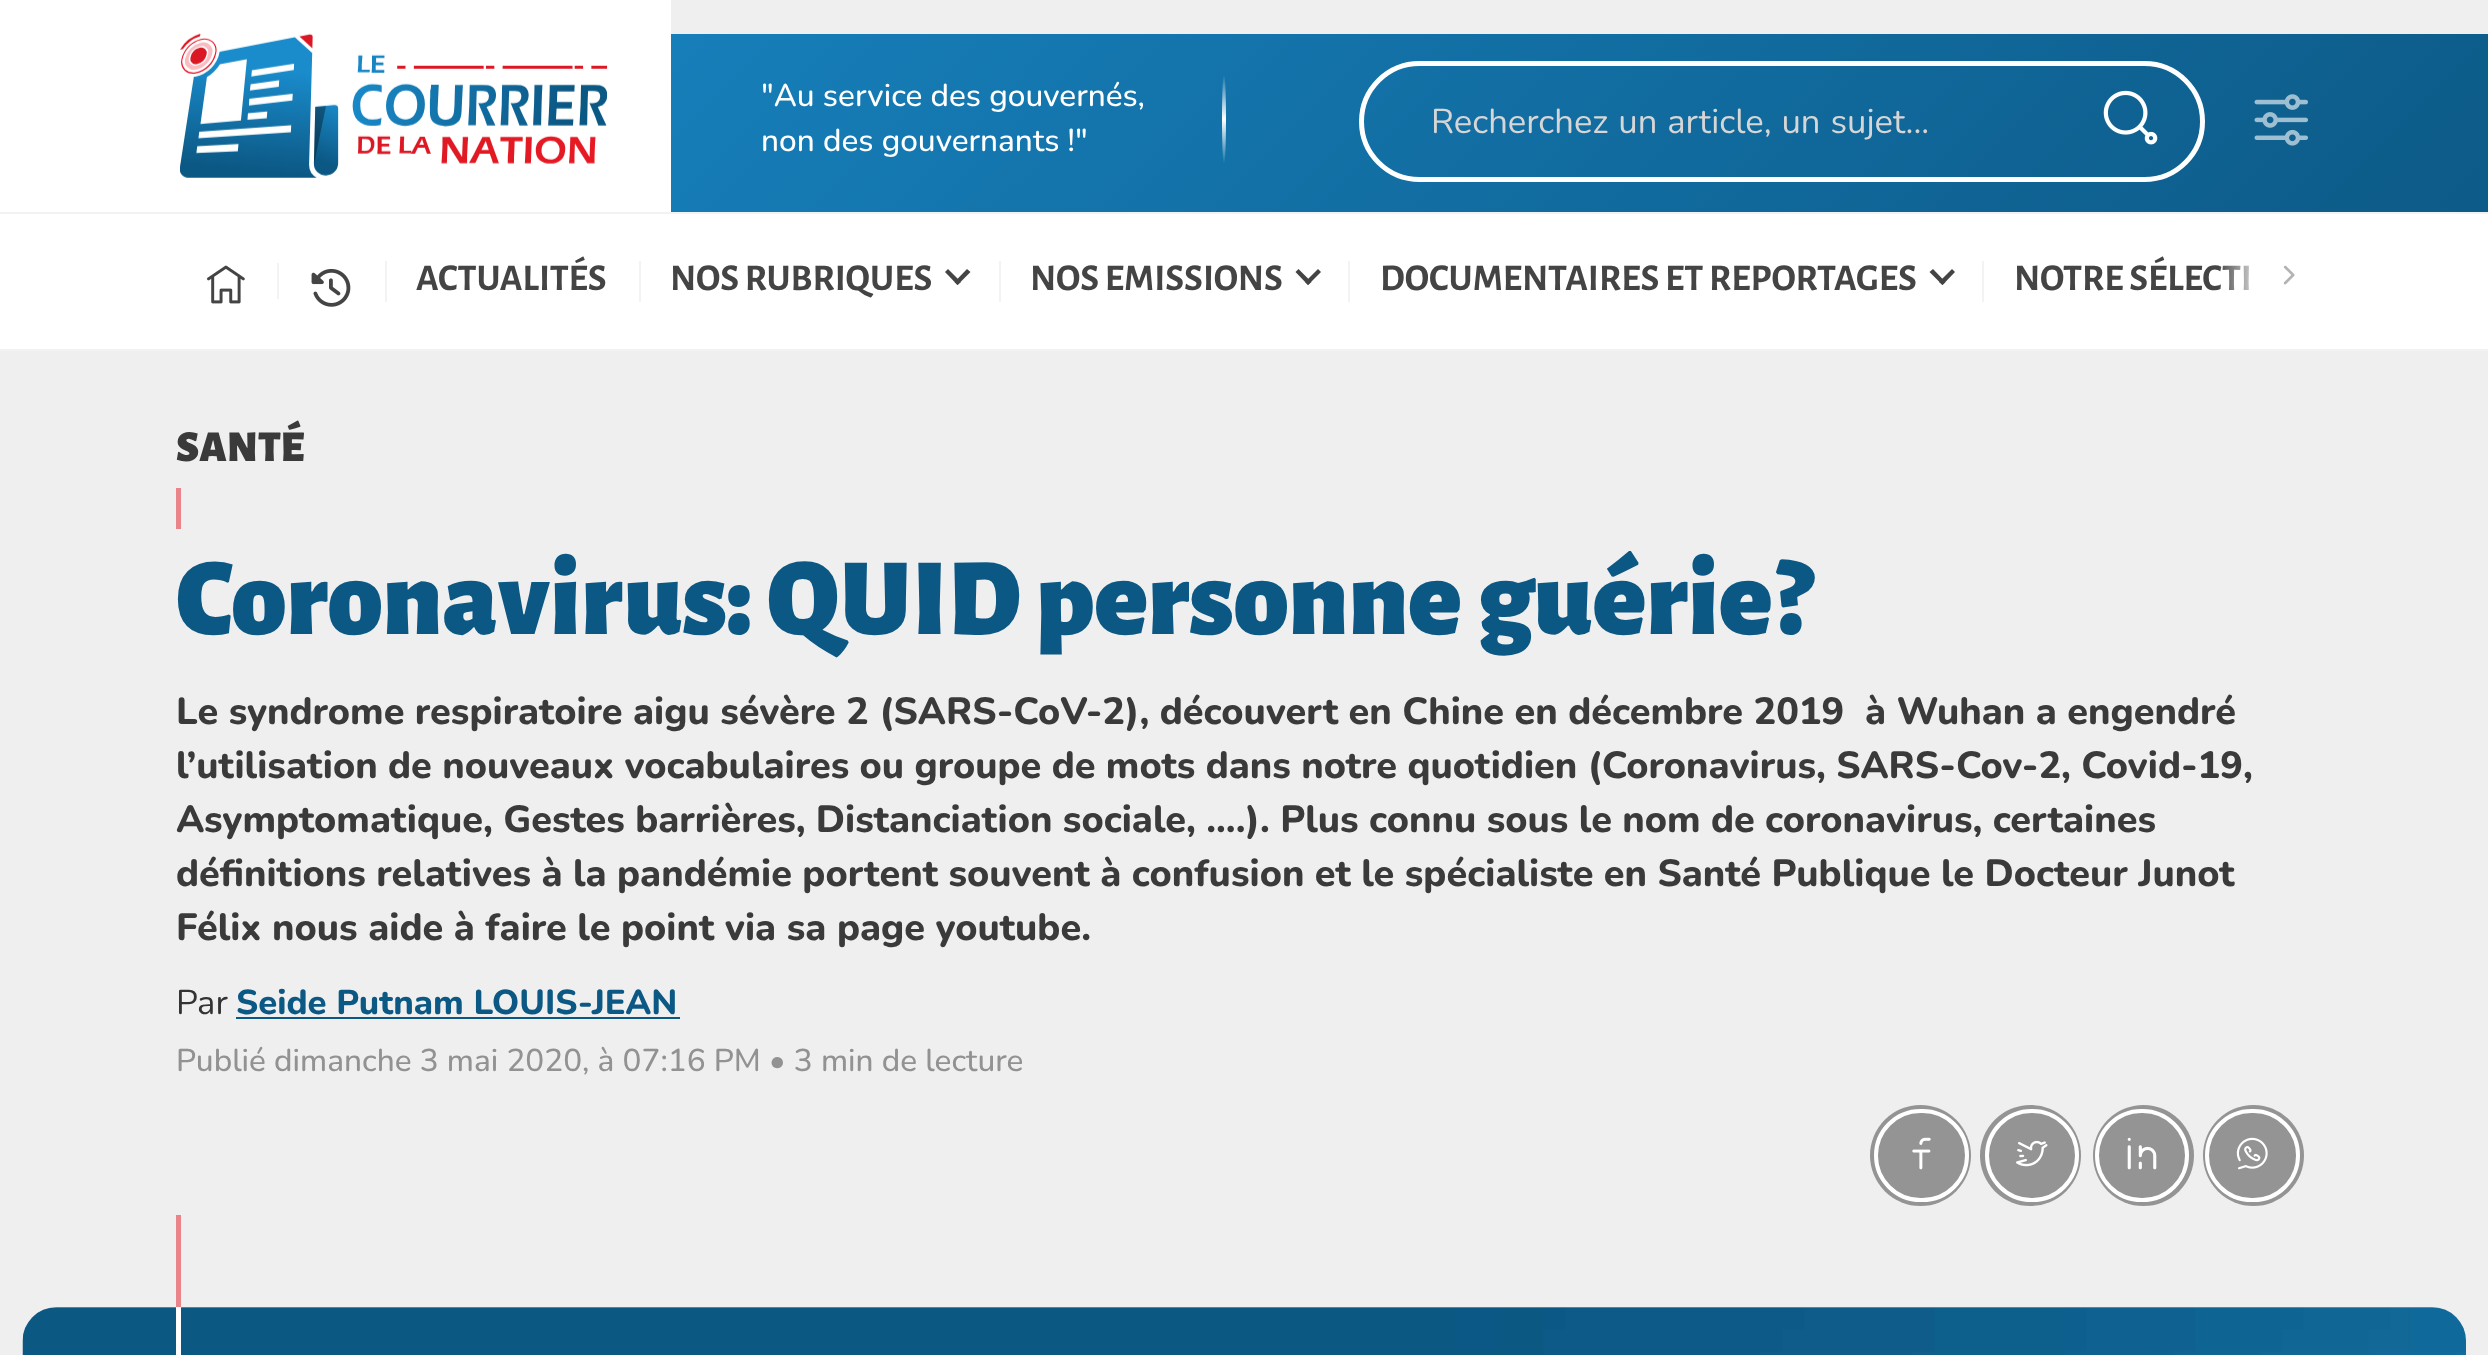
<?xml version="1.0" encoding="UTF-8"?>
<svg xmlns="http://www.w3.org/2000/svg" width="2488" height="1355">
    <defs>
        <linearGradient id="g1" gradientUnits="userSpaceOnUse" x1="1954" y1="885" x2="534" y2="-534"><stop offset="0" stop-color="#0C5884"/><stop offset="1" stop-color="#1A8BCB"/></linearGradient>
        <linearGradient id="g2" gradientUnits="userSpaceOnUse" x1="1224" y1="164" x2="1224" y2="74"><stop offset="0" stop-color="#1373A9"/><stop offset="0.5" stop-color="#FFFFFF"/><stop offset="1" stop-color="#1373A9"/></linearGradient>
        <linearGradient id="g3" gradientUnits="userSpaceOnUse" x1="2178" y1="279" x2="2336" y2="279"><stop offset="0.25" stop-color="#FFFFFF" stop-opacity="0"/><stop offset="0.55" stop-color="#FFFFFF"/></linearGradient>
    </defs>
    <rect width="100%" height="100%" fill="#EFEFEF"/>
    <rect x="671" y="34" width="1817" height="178" fill="url(#g1)"/>
    <rect x="0" y="0" width="671" height="212" fill="#FFFFFF"/>
    <image x="180" y="33" width="428" height="145" href="img_01.png"/>
    <text x="761" y="106" font-family="Nunito" font-size="31.5" font-weight="500" fill="#FFFFFF">"Au service des gouvernés,</text>
    <ellipse cx="1224" cy="119" rx="2" ry="45" fill="url(#g2)"/>
    <text x="761" y="151" font-family="Nunito" font-size="31.5" font-weight="500" fill="#FFFFFF">non des gouvernants !"</text>
    <rect x="1361.5" y="63.5" width="841" height="116" rx="58" fill="none" stroke="#FFFFFF" stroke-width="5"/>
    <text x="1431" y="133" word-spacing="1" font-family="Nunito" font-size="34.6" fill="#D6D6D6">Recherchez un article, un sujet...</text>
    <image x="2103" y="90" width="55" height="55" href="img_02.png"/>
    <image x="2254" y="94" width="54" height="52" href="img_03.png"/>
    <rect x="0" y="214" width="2488" height="135" fill="#FFFFFF"/>
    <rect x="0" y="212" width="2488" height="2" fill="#F2F2F2"/>
    <rect x="0" y="349" width="2488" height="2" fill="#F2F2F2"/>
    <image x="207" y="265" width="38" height="39" href="img_04.png"/>
    <rect x="277" y="263" width="2" height="36" fill="#F3F3F3"/>
    <image x="311" y="268" width="40" height="39" href="img_05.png"/>
    <rect x="385" y="261" width="2" height="41" fill="#F3F3F3"/>
    <text x="416" y="290" font-family="Alegreya Sans" font-size="37.8" font-weight="700" fill="#444444">ACTUALITÉS</text>
    <rect x="639" y="261" width="2" height="41" fill="#F3F3F3"/>
    <text x="670" y="290" font-family="Alegreya Sans" font-size="37.8" font-weight="700" fill="#444444">NOS RUBRIQUES</text>
    <path d="M 967 269 L 970.5 272 L 957.5 285 L 954.5 282 Z" fill="#444444"/>
    <path d="M 948 269 L 961 282 L 957.5 285 L 945 272 Z" fill="#444444"/>
    <rect x="999" y="261" width="2" height="41" fill="#F3F3F3"/>
    <text x="1030" y="290" font-family="Alegreya Sans" font-size="37.8" font-weight="700" fill="#444444">NOS EMISSIONS</text>
    <path d="M 1318 269 L 1321 272 L 1308 285 L 1305 282 Z" fill="#444444"/>
    <path d="M 1298.5 269 L 1311.5 282 L 1308 285 L 1295.5 272 Z" fill="#444444"/>
    <rect x="1348" y="261" width="2" height="41" fill="#F3F3F3"/>
    <text x="1380" y="290" font-family="Alegreya Sans" font-size="37.8" font-weight="700" fill="#444444">DOCUMENTAIRES ET REPORTAGES</text>
    <path d="M 1952 269 L 1955 272 L 1942.5 285 L 1939 282 Z" fill="#444444"/>
    <path d="M 1933 269 L 1945.5 282 L 1942.5 285 L 1929.5 272 Z" fill="#444444"/>
    <rect x="1982" y="261" width="2" height="41" fill="#F3F3F3"/>
    <text x="2014" y="290" font-family="Alegreya Sans" font-size="37.8" font-weight="700" fill="#444444">NOTRE SÉLECTI</text>
    <rect x="2219" y="265" width="31" height="25" fill="url(#g3)"/>
    <image x="2283" y="265" width="12" height="20" href="img_06.png"/>
    <text x="176" y="461" font-family="Alegreya Sans" font-size="44" font-weight="900" fill="#3A3A3A">SANTÉ</text>
    <rect x="176" y="488" width="5" height="41" fill="#E8848A"/>
    <text x="176" y="634" font-family="Alegreya Sans" font-size="110.25" font-weight="900" fill="#0C5884">Coronavirus: QUID personne guérie?</text>
    <text font-family="Nunito" font-size="37.8" font-weight="800" fill="#3A3A3A" xml:space="preserve"><tspan x="176" y="724" word-spacing="-0.1">Le syndrome respiratoire aigu sévère 2 (SARS-CoV-2), découvert en Chine en décembre 2019  à Wuhan a engendré</tspan><tspan x="176" y="778" word-spacing="-0.2">l’utilisation de nouveaux vocabulaires ou groupe de mots dans notre quotidien (Coronavirus, SARS-Cov-2, Covid-19,</tspan><tspan x="176" y="832" word-spacing="-0.2">Asymptomatique, Gestes barrières, Distanciation sociale, ....). Plus connu sous le nom de coronavirus, certaines</tspan><tspan x="176" y="886" word-spacing="-0.1">définitions relatives à la pandémie portent souvent à confusion et le spécialiste en Santé Publique le Docteur Junot</tspan><tspan x="176" y="940">Félix nous aide à faire le point via sa page youtube.</tspan></text>
    <text x="176" y="1014" font-family="Nunito" font-size="34.6" fill="#333333">Par</text>
    <text x="236" y="1014" font-family="Nunito" font-size="34.6" font-weight="800" fill="#0C5884">Seide Putnam LOUIS-JEAN</text>
    <rect x="236" y="1017" width="444" height="2" fill="#0C5884"/>
    <text x="176" y="1071" font-family="Nunito" font-size="31.5" font-weight="500" fill="#929292">Publié dimanche 3 mai 2020, à 07:16 PM • 3 min de lecture</text>
    <circle cx="1920.5" cy="1155.5" r="50.5" fill="#949494"/>
    <image x="1912" y="1137" width="19" height="33" href="img_07.png"/>
    <rect x="1876" y="1111" width="91" height="89" rx="44.5" fill="none" stroke="#FFFFFF" stroke-width="4"/>
    <circle cx="2030.5" cy="1155.5" r="50.5" fill="#949494"/>
    <image x="2016" y="1140" width="32" height="27" href="img_08.png"/>
    <rect x="1987" y="1111" width="90" height="89" rx="44.5" fill="none" stroke="#FFFFFF" stroke-width="4"/>
    <circle cx="2143.5" cy="1155.5" r="50.5" fill="#949494"/>
    <image x="2127" y="1137" width="30" height="33" href="img_09.png"/>
    <rect x="2097" y="1111" width="90" height="89" rx="44.5" fill="none" stroke="#FFFFFF" stroke-width="4"/>
    <circle cx="2253.5" cy="1155.5" r="50.5" fill="#949494"/>
    <image x="2236" y="1137" width="32" height="33" href="img_10.png"/>
    <rect x="2207" y="1111" width="91" height="89" rx="44.5" fill="none" stroke="#FFFFFF" stroke-width="4"/>
    <rect x="176" y="1215" width="5" height="92" fill="#E8848A"/>
    <rect x="23" y="1307" width="2443" height="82" rx="34" fill="#BBBABA"/>
    <image x="22" y="1307" width="2444" height="48" href="img_11.png"/>
    <rect x="176" y="1307" width="5" height="48" fill="#FFFFFF"/>
</svg>
